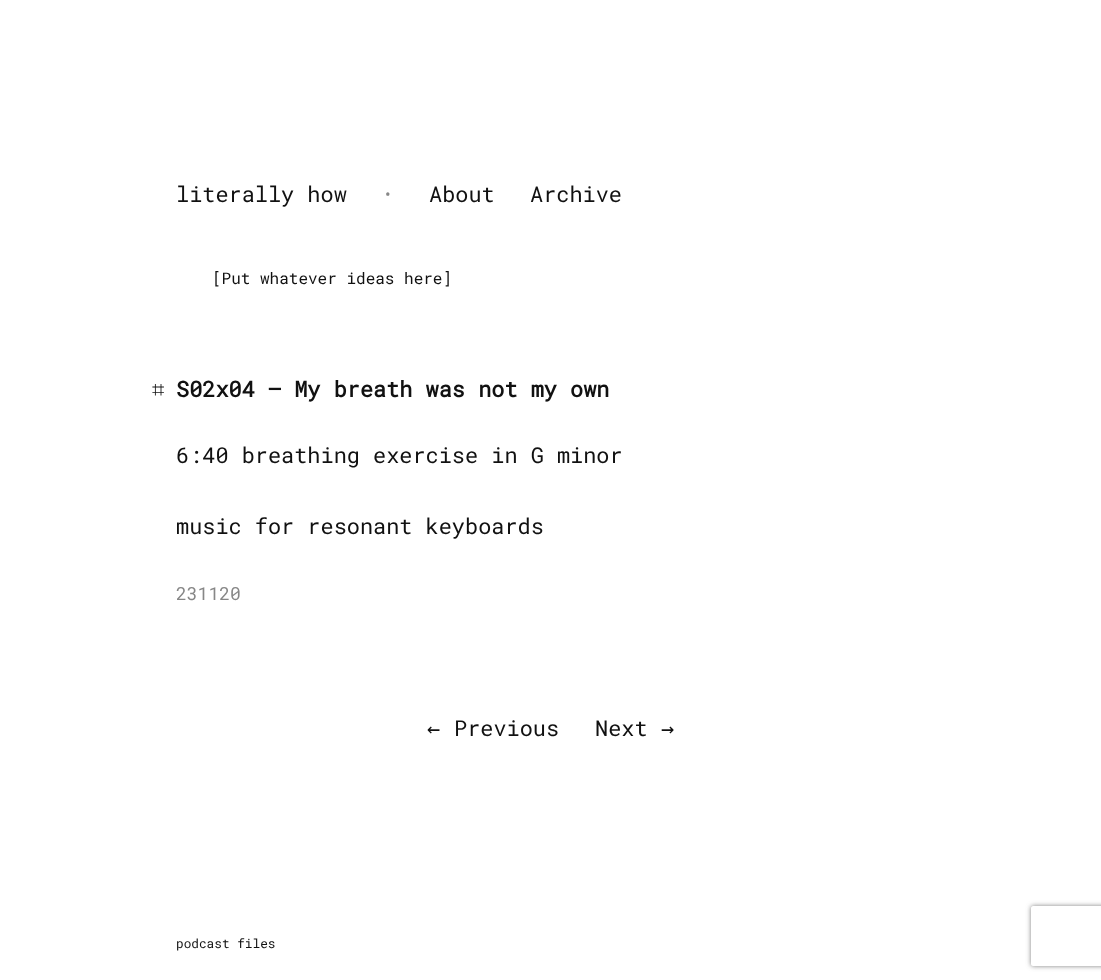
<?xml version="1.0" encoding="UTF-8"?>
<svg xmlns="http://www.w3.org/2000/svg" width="1101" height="980">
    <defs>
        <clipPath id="clip1"><path d="M 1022 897 H 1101 V 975 H 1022 Z M 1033 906 H 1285 C 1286 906 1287 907 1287 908 V 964 C 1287 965 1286 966 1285 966 H 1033 C 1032 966 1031 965 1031 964 V 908 C 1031 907 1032 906 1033 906 Z" clip-rule="evenodd"/></clipPath>
        <filter id="blur1" x="-50%" y="-200%" width="200%" height="500%"><feGaussianBlur stdDeviation="2.5"/></filter>
    </defs>
    <rect width="100%" height="100%" fill="#FFFFFF"/>
    <text x="176" y="202" font-family="Roboto Mono" font-size="21.9" fill="#111111">literally how</text>
    <text x="383" y="200" font-family="Roboto Mono" font-size="16" fill="#878787">•</text>
    <text x="429" y="202" font-family="Roboto Mono" font-size="21.9" fill="#111111">About</text>
    <text x="530" y="202" font-family="Roboto Mono" font-size="21.9" fill="#111111">Archive</text>
    <text x="212" y="284" font-family="Roboto Mono" font-size="16" fill="#111111">[Put whatever ideas here]</text>
    <text x="152" y="397" font-family="FreeSerif" font-size="21.9" fill="#111111">⌗</text>
    <text x="176" y="397" font-family="Roboto Mono" font-size="21.9" font-weight="700" fill="#111111">S02x04 – My breath was not my own</text>
    <text x="176" y="463" font-family="Roboto Mono" font-size="21.9" fill="#111111">6:40 breathing exercise in G minor</text>
    <text x="176" y="534" font-family="Roboto Mono" font-size="21.9" fill="#111111">music for resonant keyboards</text>
    <text x="176" y="600" font-family="Roboto Mono" font-size="18" fill="#878787">231120</text>
    <text x="427" y="736" font-family="DejaVu Sans Mono" font-size="21.9" fill="#111111">←</text>
    <text x="454" y="736" font-family="Roboto Mono" font-size="21.9" fill="#111111">Previous</text>
    <text x="595" y="736" font-family="Roboto Mono" font-size="21.9" fill="#111111">Next</text>
    <text x="661" y="736" font-family="DejaVu Sans Mono" font-size="21.9" fill="#111111">→</text>
    <text x="176" y="948" font-family="Roboto Mono" font-size="12.75" fill="#111111">podcast files</text>
    <g clip-path="url(#clip1)">
        <rect x="1031" y="906" width="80" height="60" rx="2" fill="#808080" filter="url(#blur1)"/>
    </g>
</svg>
